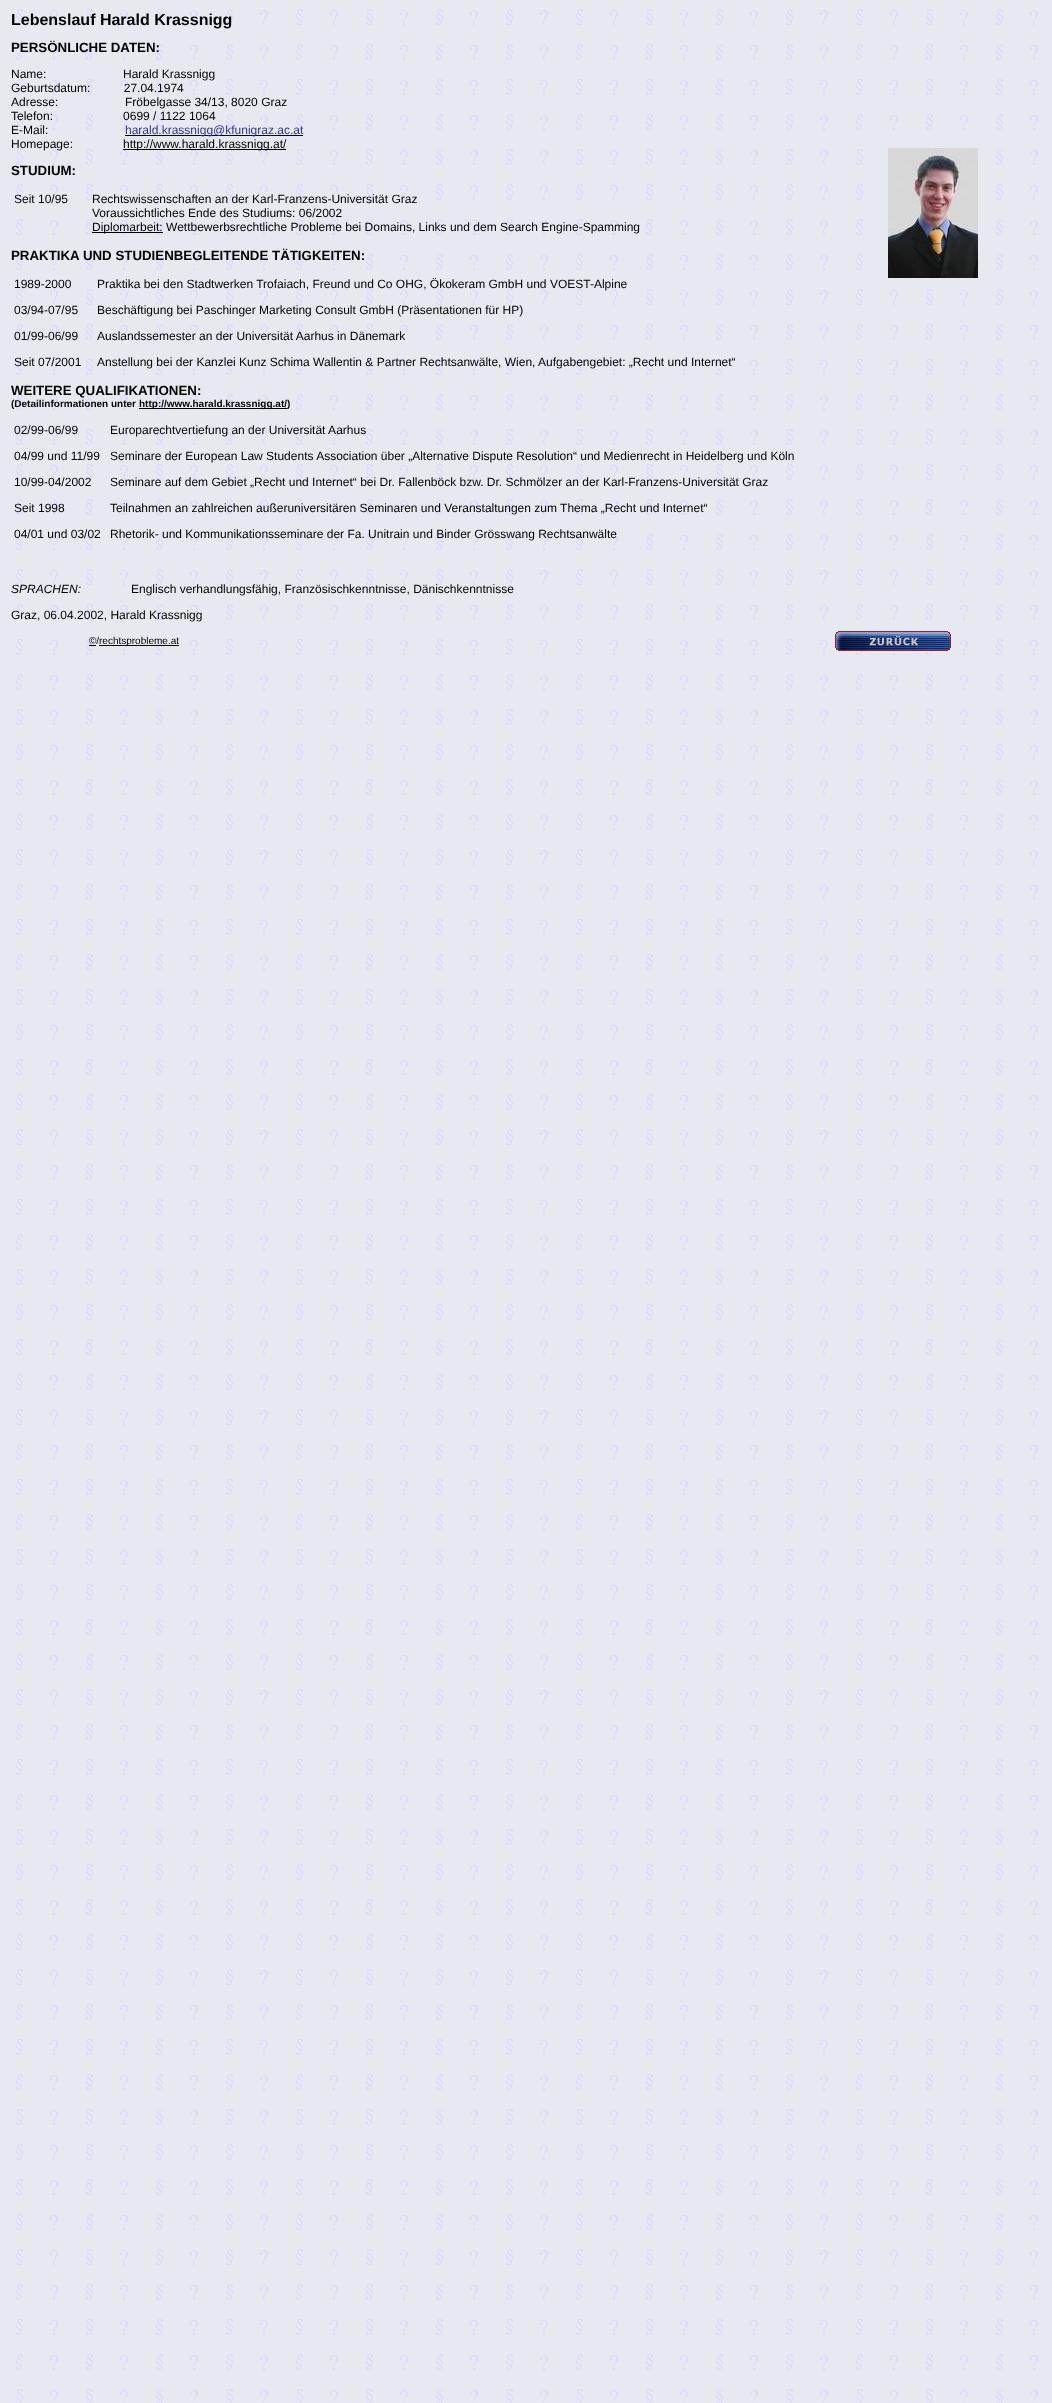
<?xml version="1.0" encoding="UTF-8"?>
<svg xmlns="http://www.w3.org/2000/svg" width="1052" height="2403">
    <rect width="100%" height="100%" fill="#FFFFFF"/>
    <image x="0" y="0" width="1052" height="2403" href="img_01.png"/>
    <text x="11" y="25" font-family="Liberation Sans" font-size="16" font-weight="700" fill="#000000">Lebenslauf Harald Krassnigg</text>
    <text x="11" y="52" font-family="Liberation Sans" font-size="13.3" font-weight="700" fill="#000000">PERSÖNLICHE DATEN:</text>
    <text font-family="Liberation Sans" font-size="12" fill="#000000" xml:space="preserve"><tspan x="11" y="78">Name:                       Harald Krassnigg</tspan><tspan x="11" y="92">Geburtsdatum:          27.04.1974</tspan><tspan x="11" y="106">Adresse:                    Fröbelgasse 34/13, 8020 Graz</tspan><tspan x="11" y="120">Telefon:                     0699 / 1122 1064</tspan><tspan x="11" y="134">E-Mail:</tspan></text>
    <rect x="125" y="135" width="178" height="1" fill="#000000"/>
    <text x="125" y="134" font-family="Liberation Sans" font-size="12" fill="#333399">harald.krassnigg@kfunigraz.ac.at</text>
    <text x="11" y="148" font-family="Liberation Sans" font-size="12" fill="#000000">Homepage:</text>
    <rect x="123" y="149" width="163" height="1" fill="#000000"/>
    <text x="123" y="148" font-family="Liberation Sans" font-size="12" fill="#000000">http://www.harald.krassnigg.at/</text>
    <text x="11" y="175" font-family="Liberation Sans" font-size="13.3" font-weight="700" fill="#000000">STUDIUM:</text>
    <text x="14" y="203" font-family="Liberation Sans" font-size="12" fill="#000000">Seit 10/95</text>
    <text font-family="Liberation Sans" font-size="12" fill="#000000">
        <tspan x="92" y="203">Rechtswissenschaften an der Karl-Franzens-Universität Graz</tspan>
        <tspan x="92" y="217">Voraussichtliches Ende des Studiums: 06/2002</tspan>
    </text>
    <rect x="92" y="232" width="71" height="1" fill="#000000"/>
    <text x="92" y="231" font-family="Liberation Sans" font-size="12" fill="#000000">Diplomarbeit: Wettbewerbsrechtliche Probleme bei Domains, Links und dem Search Engine-Spamming</text>
    <text x="11" y="260" font-family="Liberation Sans" font-size="13.3" font-weight="700" fill="#000000">PRAKTIKA UND STUDIENBEGLEITENDE TÄTIGKEITEN:</text>
    <text x="14" y="288" font-family="Liberation Sans" font-size="12" fill="#000000">1989-2000</text>
    <text x="14" y="314" font-family="Liberation Sans" font-size="12" fill="#000000">03/94-07/95</text>
    <text x="14" y="340" font-family="Liberation Sans" font-size="12" fill="#000000">01/99-06/99</text>
    <text x="14" y="366" font-family="Liberation Sans" font-size="12" fill="#000000">Seit 07/2001</text>
    <text x="97" y="288" font-family="Liberation Sans" font-size="12" fill="#000000">Praktika bei den Stadtwerken Trofaiach, Freund und Co OHG, Ökokeram GmbH und VOEST-Alpine</text>
    <text x="97" y="314" font-family="Liberation Sans" font-size="12" fill="#000000">Beschäftigung bei Paschinger Marketing Consult GmbH (Präsentationen für HP)</text>
    <text x="97" y="340" font-family="Liberation Sans" font-size="12" fill="#000000">Auslandssemester an der Universität Aarhus in Dänemark</text>
    <text x="97" y="366" font-family="Liberation Sans" font-size="12" fill="#000000">Anstellung bei der Kanzlei Kunz Schima Wallentin &amp; Partner Rechtsanwälte, Wien, Aufgabengebiet: „Recht und Internet“</text>
    <text x="11" y="395" font-family="Liberation Sans" font-size="13.3" font-weight="700" fill="#000000">WEITERE QUALIFIKATIONEN:</text>
    <text x="11" y="407" font-family="Liberation Sans" font-size="10" font-weight="700" fill="#000000">(Detailinformationen unter</text>
    <rect x="139" y="408" width="148" height="1" fill="#000000"/>
    <text x="139" y="407" font-family="Liberation Sans" font-size="10" font-weight="700" fill="#000000">http://www.harald.krassnigg.at/)</text>
    <text x="14" y="434" font-family="Liberation Sans" font-size="12" fill="#000000">02/99-06/99</text>
    <text x="14" y="460" font-family="Liberation Sans" font-size="12" fill="#000000">04/99 und 11/99</text>
    <text x="14" y="486" font-family="Liberation Sans" font-size="12" fill="#000000">10/99-04/2002</text>
    <text x="14" y="512" font-family="Liberation Sans" font-size="12" fill="#000000">Seit 1998</text>
    <text x="14" y="538" font-family="Liberation Sans" font-size="12" fill="#000000">04/01 und 03/02</text>
    <text x="110" y="434" font-family="Liberation Sans" font-size="12" fill="#000000">Europarechtvertiefung an der Universität Aarhus</text>
    <text x="110" y="460" font-family="Liberation Sans" font-size="12" fill="#000000">Seminare der European Law Students Association über „Alternative Dispute Resolution“ und Medienrecht in Heidelberg und Köln</text>
    <text x="110" y="486" font-family="Liberation Sans" font-size="12" fill="#000000">Seminare auf dem Gebiet „Recht und Internet“ bei Dr. Fallenböck bzw. Dr. Schmölzer an der Karl-Franzens-Universität Graz</text>
    <text x="110" y="512" font-family="Liberation Sans" font-size="12" fill="#000000">Teilnahmen an zahlreichen außeruniversitären Seminaren und Veranstaltungen zum Thema „Recht und Internet“</text>
    <text x="110" y="538" font-family="Liberation Sans" font-size="12" fill="#000000">Rhetorik- und Kommunikationsseminare der Fa. Unitrain und Binder Grösswang Rechtsanwälte</text>
    <text x="11" y="593" font-family="Liberation Sans" font-size="12" font-style="italic" fill="#000000">SPRACHEN:</text>
    <text x="131" y="593" font-family="Liberation Sans" font-size="12" fill="#000000">Englisch verhandlungsfähig, Französischkenntnisse, Dänischkenntnisse</text>
    <text x="11" y="619" font-family="Liberation Sans" font-size="12" fill="#000000">Graz, 06.04.2002, Harald Krassnigg</text>
    <image x="888" y="148" width="90" height="130" href="img_02.png"/>
    <text x="89" y="644" font-family="Liberation Sans" font-size="10" fill="#000000">©/</text>
    <rect x="89" y="645" width="7" height="1" fill="#000000"/>
    <rect x="99" y="645" width="80" height="1" fill="#000000"/>
    <text x="99" y="644" font-family="Liberation Sans" font-size="10" fill="#000000">rechtsprobleme.at</text>
    <image x="835" y="631" width="116" height="20" href="img_03.png"/>
</svg>
